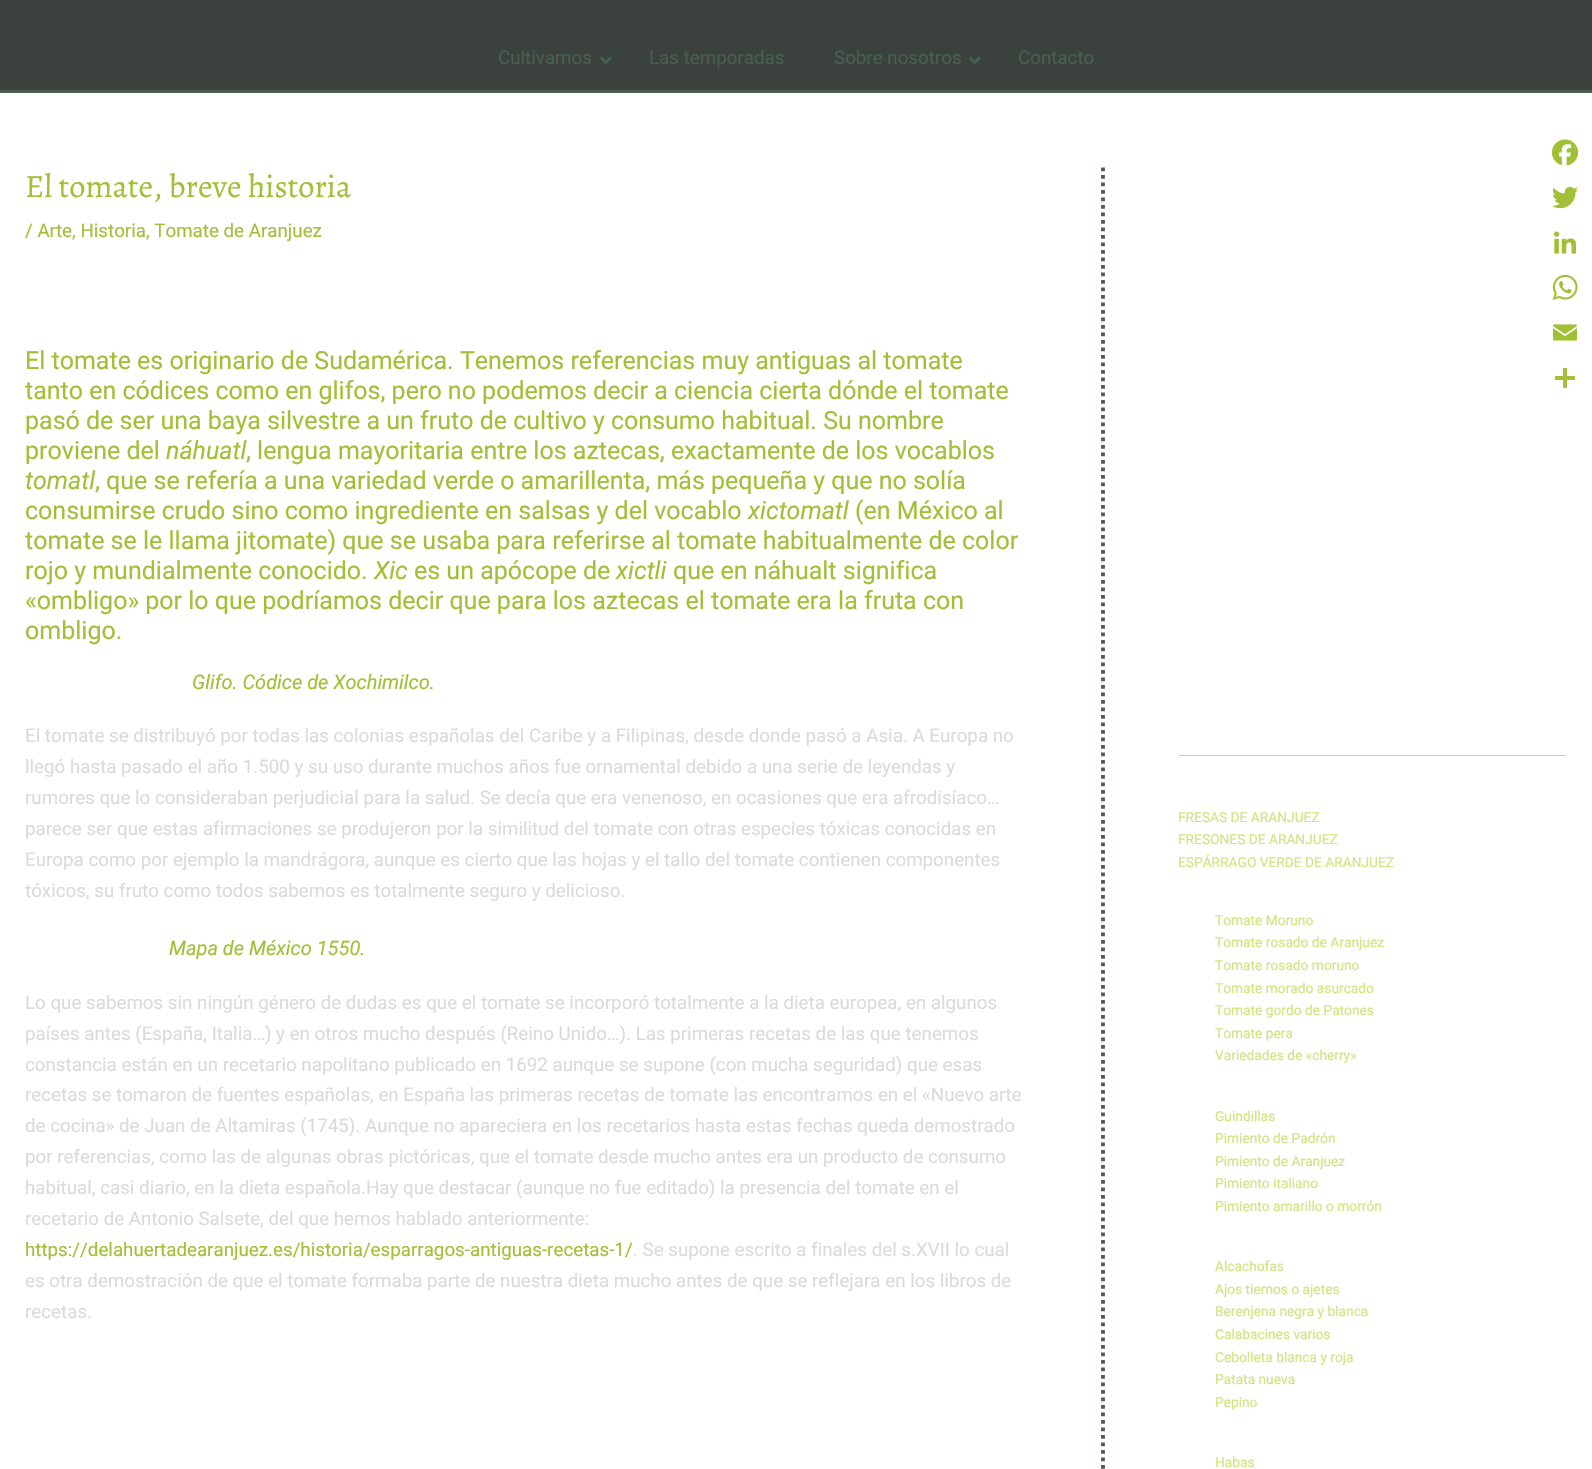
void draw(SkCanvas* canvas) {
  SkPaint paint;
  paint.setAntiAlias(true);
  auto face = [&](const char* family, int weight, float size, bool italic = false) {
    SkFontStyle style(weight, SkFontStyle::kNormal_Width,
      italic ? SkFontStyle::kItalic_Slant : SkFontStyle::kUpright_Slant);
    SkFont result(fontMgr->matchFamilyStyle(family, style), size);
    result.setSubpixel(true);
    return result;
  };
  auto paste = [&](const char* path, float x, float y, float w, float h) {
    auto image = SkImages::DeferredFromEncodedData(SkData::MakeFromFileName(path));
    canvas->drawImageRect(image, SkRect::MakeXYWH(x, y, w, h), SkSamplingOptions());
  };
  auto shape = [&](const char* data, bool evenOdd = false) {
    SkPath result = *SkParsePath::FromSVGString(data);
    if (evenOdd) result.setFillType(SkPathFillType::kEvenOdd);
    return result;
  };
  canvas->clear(0xffffffff);
  paint.setColor(0xff3b423e);
  canvas->drawRect(SkRect::MakeXYWH(0, 0, 1592, 90), paint);
  paint.setColor(0xff485f4e);
  canvas->drawRect(SkRect::MakeXYWH(0, 90, 1592, 3), paint);
  paste("img/1.png", 600, 56, 12, 8);
  paste("img/2.png", 969, 56, 12, 8);
  paint.setStroke(true);
  paint.setStrokeWidth(3.8f);
  paint.setPathEffect(SkDashPathEffect::Make({{3.75f, 3.75f}}, 0));
  canvas->drawPath(shape("M1103 167.5V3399"), paint);
  paint.setPathEffect(nullptr);
  paint.setStroke(false);
  paint.setColor(0xffcccccc);
  canvas->drawRect(SkRect::MakeXYWH(1179, 755, 387, 1), paint);
  paste("img/3.png", 1551, 139, 28, 27);
  paste("img/4.png", 1552, 186, 26, 23);
  paste("img/5.png", 1554, 231, 23, 23);
  paste("img/6.png", 1552, 274, 26, 27);
  paste("img/7.png", 1552, 324, 26, 17);
  paint.setColor(0xffa1c037);
  canvas->drawRect(SkRect::MakeXYWH(1563, 368, 4, 20), paint);
  canvas->drawRect(SkRect::MakeXYWH(1555, 376, 20, 4), paint);
  auto f0 = face("Roboto", 400, 18.75f);
  paint.setColor(0xff485f4e);
  {
    const struct { const char* s; float x, y; } items[] = {
      {"Cultivamos", 498, 64},
      {"Las temporadas", 649, 64},
      {"Sobre nosotros", 834, 64},
      {"Contacto", 1018, 64},
    };
    for (auto [s, x, y] : items) {
      canvas->drawString(s, x, y, f0, paint);
    }
  }
  auto f1 = face("Alegreya", 400, 32.5f);
  paint.setColor(0xffa1c037);
  canvas->drawString("El tomate, breve historia", 25, 197, f1, paint);
  canvas->drawString("/ Arte, Historia, Tomate de Aranjuez", 25, 237, f0, paint);
  auto f2 = face("Roboto", 400, 25);
  {
    const struct { const char* s; float x, y; } items[] = {
      {"El tomate es originario de Sudamérica. Tenemos referencias muy antiguas al tomate", 25, 369},
      {"tanto en códices como en glifos, pero no podemos decir a ciencia cierta dónde el tomate", 25, 399},
      {"pasó de ser una baya silvestre a un fruto de cultivo y consumo habitual. Su nombre", 25, 429},
      {"proviene del", 25, 459},
    };
    for (auto [s, x, y] : items) {
      canvas->drawString(s, x, y, f2, paint);
    }
  }
  auto f3 = face("Roboto", 400, 25, true);
  canvas->drawString("náhuatl", 166, 459, f3, paint);
  canvas->drawString(", lengua mayoritaria entre los aztecas, exactamente de los vocablos", 246, 459, f2, paint);
  canvas->drawString("tomatl", 25, 489, f3, paint);
  canvas->drawString(", que se refería a una variedad verde o amarillenta, más pequeña y que no solía", 95, 489, f2, paint);
  canvas->drawString("consumirse crudo sino como ingrediente en salsas y del vocablo", 25, 519, f2, paint);
  canvas->drawString("xictomatl", 748, 519, f3, paint);
  {
    const struct { const char* s; float x, y; } items[] = {
      {"(en México al", 855, 519},
      {"tomate se le llama jitomate) que se usaba para referirse al tomate habitualmente de color", 25, 549},
      {"rojo y mundialmente conocido.", 25, 579},
    };
    for (auto [s, x, y] : items) {
      canvas->drawString(s, x, y, f2, paint);
    }
  }
  canvas->drawString("Xic", 374, 579, f3, paint);
  canvas->drawString("es un apócope de", 414, 579, f2, paint);
  canvas->drawString("xictli", 616, 579, f3, paint);
  {
    const struct { const char* s; float x, y; } items[] = {
      {"que en náhualt significa", 673, 579},
      {"«ombligo» por lo que podríamos decir que para los aztecas el tomate era la fruta con", 25, 609},
      {"ombligo.", 25, 639},
    };
    for (auto [s, x, y] : items) {
      canvas->drawString(s, x, y, f2, paint);
    }
  }
  auto f4 = face("Roboto", 400, 20, true);
  canvas->drawString("Glifo. Códice de Xochimilco.", 192, 689, f4, paint);
  paint.setColor(0xffdbdbdb);
  {
    const struct { const char* s; float x, y; } items[] = {
      {"El tomate se distribuyó por todas las colonias españolas del Caribe y a Filipinas, desde donde pasó a Asia. A Europa no", 25, 742},
      {"llegó hasta pasado el año 1.500 y su uso durante muchos años fue ornamental debido a una serie de leyendas y", 25, 773},
      {"rumores que lo consideraban perjudicial para la salud. Se decía que era venenoso, en ocasiones que era afrodisíaco…", 25, 804},
      {"parece ser que estas afirmaciones se produjeron por la similitud del tomate con otras especies tóxicas conocidas en", 25, 835},
      {"Europa como por ejemplo la mandrágora, aunque es cierto que las hojas y el tallo del tomate contienen componentes", 25, 866},
      {"tóxicos, su fruto como todos sabemos es totalmente seguro y delicioso.", 25, 897},
    };
    for (auto [s, x, y] : items) {
      canvas->drawString(s, x, y, f0, paint);
    }
  }
  paint.setColor(0xffa1c037);
  canvas->drawString("Mapa de México 1550.", 169, 955, f4, paint);
  paint.setColor(0xffdbdbdb);
  {
    const struct { const char* s; float x, y; } items[] = {
      {"Lo que sabemos sin ningún género de dudas es que el tomate se incorporó totalmente a la dieta europea, en algunos", 25, 1009},
      {"países antes (España, Italia…) y en otros mucho después (Reino Unido…). Las primeras recetas de las que tenemos", 25, 1040},
      {"constancia están en un recetario napolitano publicado en 1692 aunque se supone (con mucha seguridad) que esas", 25, 1071},
      {"recetas se tomaron de fuentes españolas, en España las primeras recetas de tomate las encontramos en el «Nuevo arte", 25, 1101},
      {"de cocina» de Juan de Altamiras (1745). Aunque no apareciera en los recetarios hasta estas fechas queda demostrado", 25, 1132},
      {"por referencias, como las de algunas obras pictóricas, que el tomate desde mucho antes era un producto de consumo", 25, 1163},
      {"habitual, casi diario, en la dieta española.Hay que destacar (aunque no fue editado) la presencia del tomate en el", 25, 1194},
      {"recetario de Antonio Salsete, del que hemos hablado anteriormente:", 25, 1225},
    };
    for (auto [s, x, y] : items) {
      canvas->drawString(s, x, y, f0, paint);
    }
  }
  paint.setColor(0xffa1c037);
  canvas->drawString("https://delahuertadearanjuez.es/historia/esparragos-antiguas-recetas-1/", 25, 1256, f0, paint);
  paint.setColor(0xffdbdbdb);
  {
    const struct { const char* s; float x, y; } items[] = {
      {". Se supone escrito a finales del s.XVII lo cual", 633, 1256},
      {"es otra demostración de que el tomate formaba parte de nuestra dieta mucho antes de que se reflejara en los libros de", 25, 1287},
      {"recetas.", 25, 1318},
    };
    for (auto [s, x, y] : items) {
      canvas->drawString(s, x, y, f0, paint);
    }
  }
  auto f5 = face("Roboto", 400, 13.75f);
  paint.setColor(0xffcfe681);
  {
    const struct { const char* s; float x, y; } items[] = {
      {"FRESAS DE ARANJUEZ", 1178, 822},
      {"FRESONES DE ARANJUEZ", 1178, 844},
      {"ESPÁRRAGO VERDE DE ARANJUEZ", 1178, 867},
      {"Tomate Moruno", 1215, 925},
      {"Tomate rosado de Aranjuez", 1215, 947},
      {"Tomate rosado moruno", 1215, 970},
      {"Tomate morado asurcado", 1215, 993},
      {"Tomate gordo de Patones", 1215, 1015},
      {"Tomate pera", 1215, 1038},
      {"Variedades de «cherry»", 1215, 1060},
      {"Guindillas", 1215, 1121},
      {"Pimiento de Padrón", 1215, 1143},
      {"Pimiento de Aranjuez", 1215, 1166},
      {"Pimiento italiano", 1215, 1188},
      {"Pimiento amarillo o morrón", 1215, 1211},
      {"Alcachofas", 1215, 1271},
      {"Ajos tiernos o ajetes", 1215, 1294},
      {"Berenjena negra y blanca", 1215, 1316},
      {"Calabacines varios", 1215, 1339},
      {"Cebolleta blanca y roja", 1215, 1362},
      {"Patata nueva", 1215, 1384},
      {"Pepino", 1215, 1407},
      {"Habas", 1215, 1467},
    };
    for (auto [s, x, y] : items) {
      canvas->drawString(s, x, y, f5, paint);
    }
  }
}
